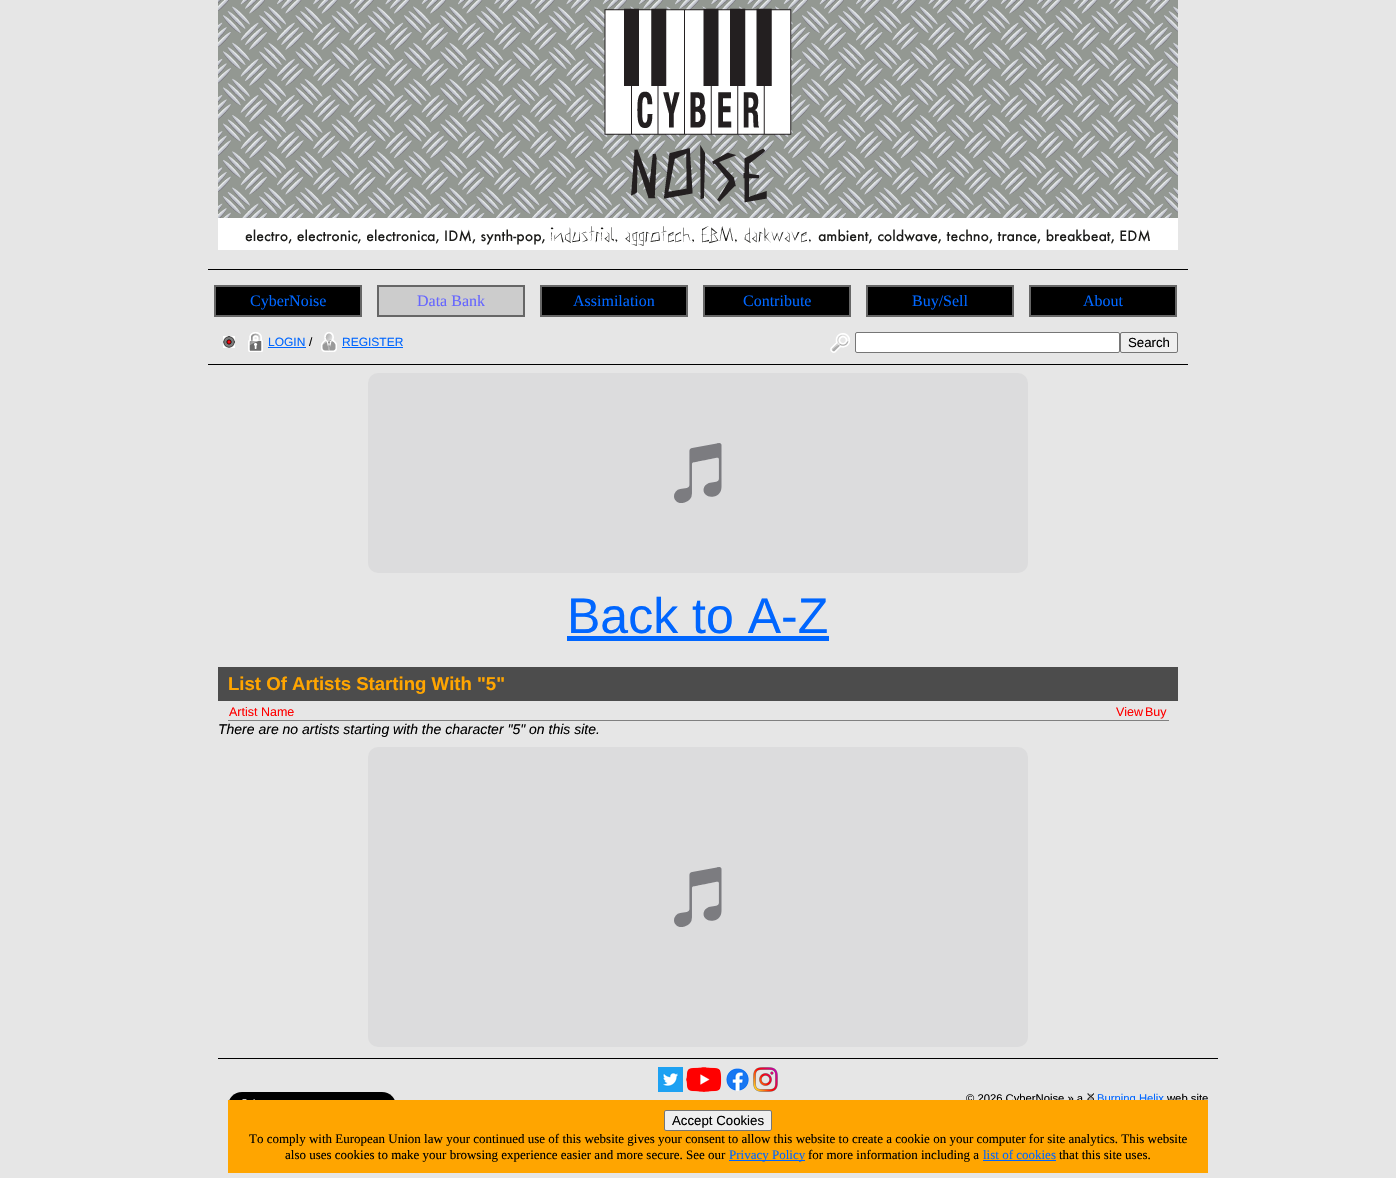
void draw(SkCanvas* canvas) {
  SkPaint paint;
  paint.setAntiAlias(true);
  auto face = [&](const char* family, int weight, float size, bool italic = false) {
    SkFontStyle style(weight, SkFontStyle::kNormal_Width,
      italic ? SkFontStyle::kItalic_Slant : SkFontStyle::kUpright_Slant);
    SkFont result(fontMgr->matchFamilyStyle(family, style), size);
    result.setSubpixel(true);
    return result;
  };
  auto paste = [&](const char* path, float x, float y, float w, float h) {
    auto image = SkImages::DeferredFromEncodedData(SkData::MakeFromFileName(path));
    canvas->drawImageRect(image, SkRect::MakeXYWH(x, y, w, h), SkSamplingOptions());
  };
  canvas->clear(0xffe6e6e6);
  paste("img/1.png", 218, 0, 960, 250);
  paint.setColor(0xff000000);
  canvas->drawRect(SkRect::MakeXYWH(208, 269, 980, 1), paint);
  canvas->drawRect(SkRect::MakeXYWH(215, 286, 146, 30), paint);
  paint.setStroke(true);
  paint.setStrokeWidth(2);
  paint.setColor(0xff666666);
  canvas->drawRect(SkRect::MakeXYWH(215, 286, 146, 30), paint);
  paint.setStroke(false);
  paint.setColor(0xffcccccc);
  canvas->drawRect(SkRect::MakeXYWH(378, 286, 146, 30), paint);
  paint.setStroke(true);
  paint.setColor(0xff666666);
  canvas->drawRect(SkRect::MakeXYWH(378, 286, 146, 30), paint);
  paint.setStroke(false);
  paint.setColor(0xff000000);
  canvas->drawRect(SkRect::MakeXYWH(541, 286, 146, 30), paint);
  paint.setStroke(true);
  paint.setColor(0xff666666);
  canvas->drawRect(SkRect::MakeXYWH(541, 286, 146, 30), paint);
  paint.setStroke(false);
  paint.setColor(0xff000000);
  canvas->drawRect(SkRect::MakeXYWH(704, 286, 146, 30), paint);
  paint.setStroke(true);
  paint.setColor(0xff666666);
  canvas->drawRect(SkRect::MakeXYWH(704, 286, 146, 30), paint);
  paint.setStroke(false);
  paint.setColor(0xff000000);
  canvas->drawRect(SkRect::MakeXYWH(867, 286, 146, 30), paint);
  paint.setStroke(true);
  paint.setColor(0xff666666);
  canvas->drawRect(SkRect::MakeXYWH(867, 286, 146, 30), paint);
  paint.setStroke(false);
  paint.setColor(0xff000000);
  canvas->drawRect(SkRect::MakeXYWH(1030, 286, 146, 30), paint);
  paint.setStroke(true);
  paint.setColor(0xff666666);
  canvas->drawRect(SkRect::MakeXYWH(1030, 286, 146, 30), paint);
  paste("img/2.png", 223, 336, 12, 12);
  paste("img/3.png", 248, 332, 15, 20);
  paint.setStroke(false);
  paint.setColor(0xff0066ff);
  canvas->drawRect(SkRect::MakeXYWH(268, 347, 38, 1), paint);
  paste("img/4.png", 321, 332, 16, 20);
  canvas->drawRect(SkRect::MakeXYWH(342, 347, 61, 1), paint);
  paste("img/5.png", 830, 333, 20, 20);
  paint.setColor(0xffffffff);
  canvas->drawRoundRect(SkRect::MakeXYWH(855.5f, 332.5f, 264, 20), 1.5f, 1.5f, paint);
  paint.setStroke(true);
  paint.setStrokeWidth(1);
  paint.setColor(0xff767676);
  canvas->drawRoundRect(SkRect::MakeXYWH(855.5f, 332.5f, 264, 20), 1.5f, 1.5f, paint);
  paint.setStroke(false);
  paint.setColor(0xffefefef);
  canvas->drawRoundRect(SkRect::MakeXYWH(1120.5f, 332.5f, 57, 20), 1.5f, 1.5f, paint);
  paint.setStroke(true);
  paint.setColor(0xff767676);
  canvas->drawRoundRect(SkRect::MakeXYWH(1120.5f, 332.5f, 57, 20), 1.5f, 1.5f, paint);
  paint.setStroke(false);
  paint.setColor(0xff000000);
  canvas->drawRect(SkRect::MakeXYWH(208, 364, 980, 1), paint);
  paste("img/6.png", 368, 373, 660, 200);
  {
    const struct { float x, y, w, h; SkColor color; } items[] = {
      {567, 636, 262, 5, 0xff0066ff},
      {218, 667, 960, 34, 0xff4c4c4c},
      {228, 720, 941, 1, 0xff808080},
    };
    for (auto [x, y, w, h, color] : items) {
      paint.setColor(color);
      canvas->drawRect(SkRect::MakeXYWH(x, y, w, h), paint);
    }
  }
  paste("img/7.png", 368, 747, 660, 300);
  paint.setColor(0xff000000);
  canvas->drawRect(SkRect::MakeXYWH(218, 1058, 1000, 1), paint);
  paste("img/8.png", 658, 1067, 25, 25);
  paste("img/9.png", 686, 1067, 36, 25);
  paste("img/10.png", 726, 1068, 23, 23);
  paste("img/11.png", 753, 1067, 25, 25);
  paste("img/12.png", 229, 1092, 166, 8);
  paste("img/13.png", 1087, 1093, 7, 7);
  auto f0 = face("Liberation Serif", 400, 16);
  paint.setColor(0xff0066ff);
  canvas->drawString("CyberNoise", 250, 306, f0, paint);
  paint.setColor(0xff6666ff);
  canvas->drawString("Data Bank", 417, 306, f0, paint);
  paint.setColor(0xff0066ff);
  {
    const struct { const char* s; float x, y; } items[] = {
      {"Assimilation", 573, 306},
      {"Contribute", 743, 306},
      {"Buy/Sell", 912, 306},
      {"About", 1083, 306},
    };
    for (auto [s, x, y] : items) {
      canvas->drawString(s, x, y, f0, paint);
    }
  }
  auto f1 = face("Liberation Sans", 400, 12);
  canvas->drawString("LOGIN", 268, 346, f1, paint);
  paint.setColor(0xff000000);
  canvas->drawString("/", 309, 346, f1, paint);
  paint.setColor(0xff0066ff);
  canvas->drawString("REGISTER", 342, 346, f1, paint);
  auto f2 = face("Liberation Sans", 400, 13.25f);
  paint.setColor(0xff000000);
  canvas->drawString("Search", 1128, 347, f2, paint);
  auto f3 = face("Liberation Sans", 400, 50);
  paint.setColor(0xff0066ff);
  canvas->drawString("Back to A-Z", 567, 633, f3, paint);
  auto f4 = face("Liberation Sans", 700, 18.6f);
  paint.setColor(0xffffa500);
  canvas->drawString("List Of Artists Starting With \"5\"", 228, 690, f4, paint);
  auto f5 = face("Liberation Sans", 400, 12.5f);
  paint.setColor(0xffff0000);
  {
    const struct { const char* s; float x, y; } items[] = {
      {"Artist Name", 229, 716},
      {"View", 1116, 716},
      {"Buy", 1145, 716},
    };
    for (auto [s, x, y] : items) {
      canvas->drawString(s, x, y, f5, paint);
    }
  }
  auto f6 = face("Liberation Sans", 400, 14, true);
  paint.setColor(0xff000000);
  canvas->drawString("There are no artists starting with the character \"5\" on this site.", 218, 734, f6, paint);
  auto f7 = face("Liberation Sans", 400, 11.25f);
  canvas->drawString("© 2026 CyberNoise » a", 966, 1102, f7, paint);
  paint.setColor(0xff0066ff);
  canvas->drawString("Burning Helix", 1097, 1102, f7, paint);
  paint.setColor(0xff000000);
  canvas->drawString("web site", 1167, 1102, f7, paint);
  paint.setColor(0xffffa500);
  canvas->drawRect(SkRect::MakeXYWH(228, 1100, 980, 73), paint);
  paint.setColor(0xffefefef);
  canvas->drawRoundRect(SkRect::MakeXYWH(664.5f, 1110.5f, 107, 20), 1.5f, 1.5f, paint);
  paint.setStroke(true);
  paint.setColor(0xff767676);
  canvas->drawRoundRect(SkRect::MakeXYWH(664.5f, 1110.5f, 107, 20), 1.5f, 1.5f, paint);
  paint.setStroke(false);
  paint.setColor(0xff000000);
  canvas->drawString("Accept Cookies", 672, 1125, f2, paint);
  auto f8 = face("Liberation Serif", 400, 13);
  canvas->drawString("To comply with European Union law your continued use of this website gives your consent to allow this website to create a cookie on your computer for site analytics. This website", 249, 1143, f8, paint);
  canvas->drawString("also uses cookies to make your browsing experience easier and more secure. See our", 285, 1159, f8, paint);
  paint.setColor(0xff0066ff);
  canvas->drawRect(SkRect::MakeXYWH(729, 1160, 76, 1), paint);
  canvas->drawString("Privacy Policy", 729, 1159, f8, paint);
  paint.setColor(0xff000000);
  canvas->drawString("for more information including a", 808, 1159, f8, paint);
  paint.setColor(0xff0066ff);
  canvas->drawString("list of cookies", 983, 1159, f8, paint);
  canvas->drawRect(SkRect::MakeXYWH(983, 1160, 73, 1), paint);
  paint.setColor(0xff000000);
  canvas->drawString("that this site uses.", 1059, 1159, f8, paint);
}
